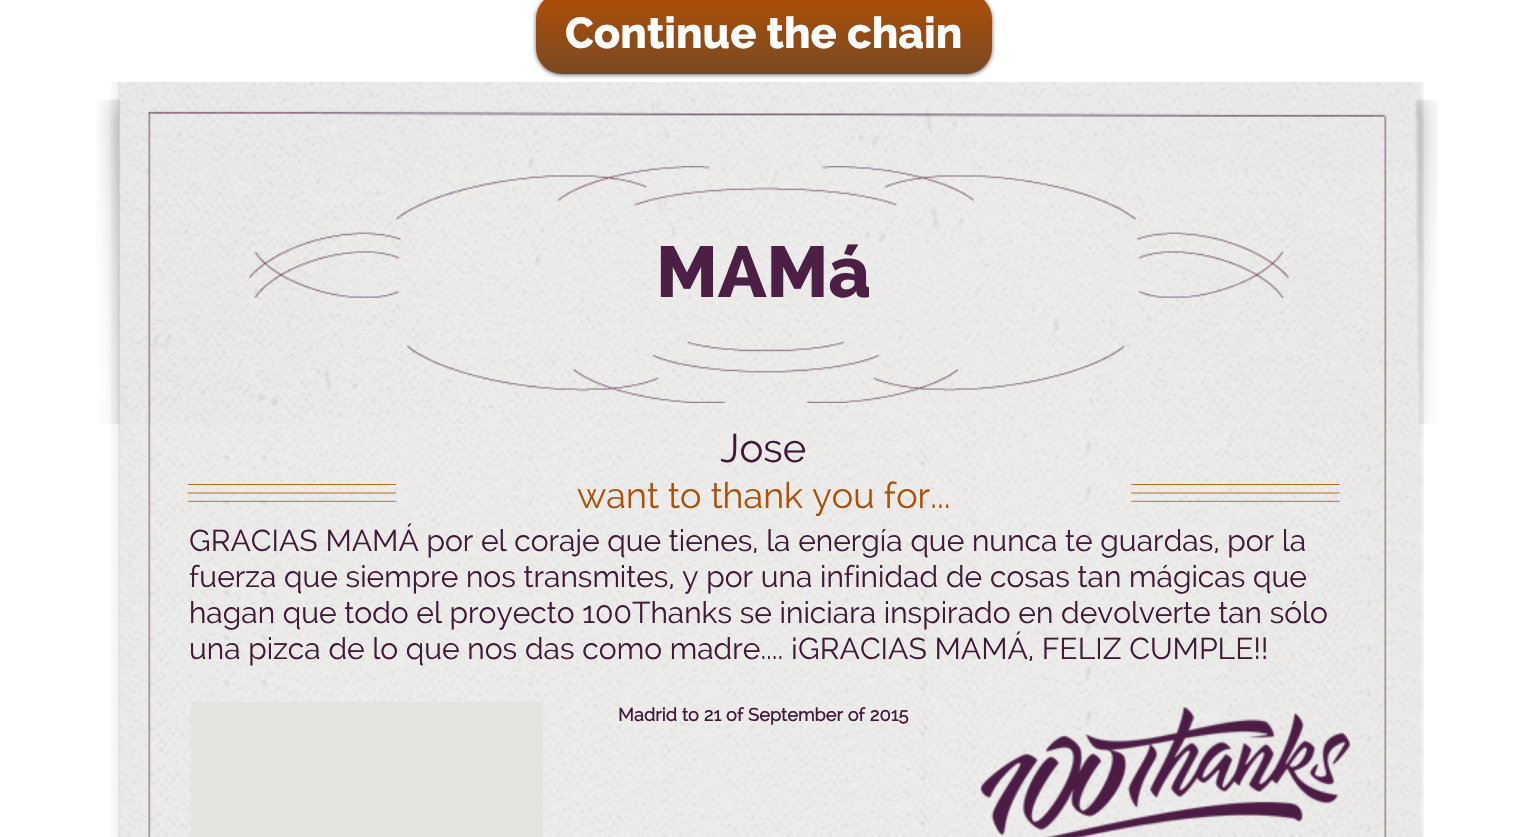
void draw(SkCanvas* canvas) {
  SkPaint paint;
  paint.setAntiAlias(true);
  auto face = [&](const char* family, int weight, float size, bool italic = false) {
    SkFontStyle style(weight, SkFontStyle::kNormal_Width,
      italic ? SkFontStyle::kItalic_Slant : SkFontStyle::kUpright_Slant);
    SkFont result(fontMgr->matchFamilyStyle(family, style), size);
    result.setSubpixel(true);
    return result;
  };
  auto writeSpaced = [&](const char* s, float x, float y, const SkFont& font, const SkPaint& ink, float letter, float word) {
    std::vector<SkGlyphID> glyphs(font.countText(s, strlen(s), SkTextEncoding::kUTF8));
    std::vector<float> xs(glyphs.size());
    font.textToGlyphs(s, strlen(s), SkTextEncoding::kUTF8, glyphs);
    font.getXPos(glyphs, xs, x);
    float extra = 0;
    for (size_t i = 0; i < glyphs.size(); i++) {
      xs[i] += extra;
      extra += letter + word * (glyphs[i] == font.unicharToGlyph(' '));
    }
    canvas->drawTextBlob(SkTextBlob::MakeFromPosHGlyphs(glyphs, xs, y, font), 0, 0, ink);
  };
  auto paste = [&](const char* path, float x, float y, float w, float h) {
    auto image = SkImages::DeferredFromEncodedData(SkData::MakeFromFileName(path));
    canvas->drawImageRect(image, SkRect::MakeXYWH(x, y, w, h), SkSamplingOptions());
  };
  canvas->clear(0xffffffff);
  paint.setColor(0xff666666);
  paint.setMaskFilter(SkMaskFilter::MakeBlur(kNormal_SkBlurStyle, 2));
  canvas->drawRoundRect(SkRect::MakeXYWH(536, -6, 456, 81), 26, 26, paint);
  paint.setMaskFilter(nullptr);
  {
    const SkColor colors[] = {0xffaf4f05, 0xff7a4924};
    const float stops[] = {0, 1};
    const SkPoint ends[] = {{764, -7.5f}, {764, 74}};
    paint.setShader(SkGradientShader::MakeLinear(ends, colors, stops, 2, SkTileMode::kClamp));
    paint.setAlpha(255);
  }
  canvas->drawRoundRect(SkRect::MakeXYWH(536, -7, 456, 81), 26, 26, paint);
  paste("img/1.png", 111, 82, 1313, 755);
  paste("img/2.png", 96, 82, 1342, 342);
  paste("img/3.png", 249, 166, 1040, 237);
  paste("img/4.png", 187, 484, 209, 18);
  paste("img/5.png", 1131, 484, 209, 18);
  paint.setShader(nullptr);
  paint.setColor(0xffe5e3df);
  canvas->drawRect(SkRect::MakeXYWH(191, 702, 352, 135), paint);
  paste("img/6.png", 980, 707, 370, 130);
  auto f0 = face("Raleway", 800, 43.5f);
  paint.setColor(0xffffffff);
  canvas->drawString("Continue the chain", 565, 48, f0, paint);
  auto f1 = face("Raleway", 800, 72);
  paint.setColor(0xff4d1f44);
  canvas->drawString("MAMá", 656, 297, f1, paint);
  auto f2 = face("Raleway", 400, 40);
  paint.setColor(0xff411939);
  canvas->drawString("Jose", 720, 462, f2, paint);
  auto f3 = face("Raleway", 400, 36);
  paint.setColor(0xffaf5005);
  canvas->drawString("want to thank you for...", 577, 508, f3, paint);
  auto f4 = face("Raleway", 400, 30);
  paint.setColor(0xff411939);
  {
    const struct { const char* s; float x, y; } items[] = {
      {"GRACIAS MAMÁ por el coraje que tienes, la energía que nunca te guardas, por la", 189, 551},
      {"fuerza que siempre nos transmites, y por una infinidad de cosas tan mágicas que", 189, 587},
      {"hagan que todo el proyecto 100Thanks se iniciara inspirado en devolverte tan sólo", 189, 623},
      {"una pizca de lo que nos das como madre.... ¡GRACIAS MAMÁ, FELIZ CUMPLE!!", 189, 659},
    };
    for (auto [s, x, y] : items) {
      canvas->drawString(s, x, y, f4, paint);
    }
  }
  auto f5 = face("Raleway", 700, 18);
  writeSpaced("Madrid to 21 of September of 2015", 618, 721, f5, paint, 0.15f, 0);
}
